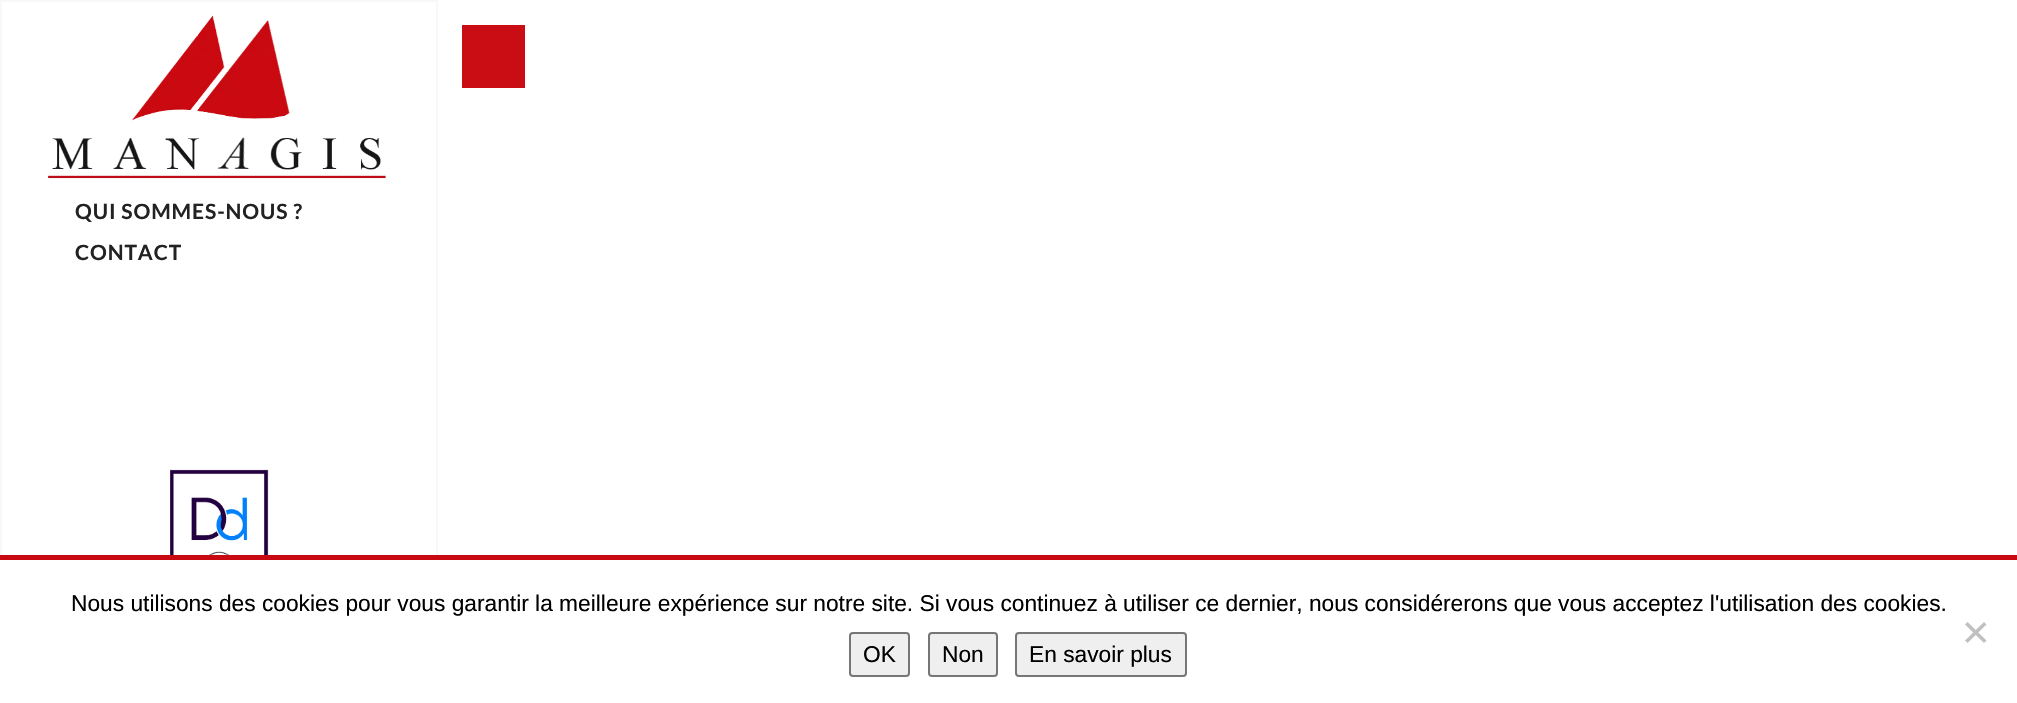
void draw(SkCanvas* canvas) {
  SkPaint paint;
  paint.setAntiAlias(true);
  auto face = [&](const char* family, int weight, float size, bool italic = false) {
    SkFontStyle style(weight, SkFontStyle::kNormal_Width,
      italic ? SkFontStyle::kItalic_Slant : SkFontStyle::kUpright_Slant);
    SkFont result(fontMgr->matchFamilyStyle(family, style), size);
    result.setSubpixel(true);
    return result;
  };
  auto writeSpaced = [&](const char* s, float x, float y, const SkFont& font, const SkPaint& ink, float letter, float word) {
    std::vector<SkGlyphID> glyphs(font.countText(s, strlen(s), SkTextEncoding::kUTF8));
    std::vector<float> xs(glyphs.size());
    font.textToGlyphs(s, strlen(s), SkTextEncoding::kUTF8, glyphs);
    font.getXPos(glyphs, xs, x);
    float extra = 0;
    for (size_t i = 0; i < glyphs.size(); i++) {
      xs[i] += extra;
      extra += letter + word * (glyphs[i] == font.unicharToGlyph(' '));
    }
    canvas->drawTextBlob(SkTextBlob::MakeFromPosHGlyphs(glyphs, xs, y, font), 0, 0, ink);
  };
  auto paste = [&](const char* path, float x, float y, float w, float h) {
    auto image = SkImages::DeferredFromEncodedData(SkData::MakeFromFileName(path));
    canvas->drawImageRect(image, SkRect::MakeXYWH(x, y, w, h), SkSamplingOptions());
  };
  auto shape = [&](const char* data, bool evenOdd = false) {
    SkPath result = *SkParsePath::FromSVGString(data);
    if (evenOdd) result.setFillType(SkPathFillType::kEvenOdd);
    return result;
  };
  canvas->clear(0xffffffff);
  paint.setColor(0xffca0c15);
  canvas->drawRect(SkRect::MakeXYWH(462, 25, 63, 63), paint);
  paint.setStroke(true);
  paint.setStrokeWidth(2);
  paint.setColor(0xfff7f8fa);
  canvas->drawRect(SkRect::MakeXYWH(1, 1, 436, 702), paint);
  paste("img/1.png", 48, 15, 338, 164);
  paste("img/2.png", 170, 469, 99, 86);
  paint.setStroke(false);
  paint.setColor(0xffffffff);
  canvas->drawRect(SkRect::MakeXYWH(0, 560, 438, 143), paint);
  paint.setColor(0xffc90912);
  canvas->drawRect(SkRect::MakeXYWH(0, 555, 2017, 5), paint);
  paint.setColor(0xffc0c0c0);
  canvas->drawPath(shape("M1984 622L1986.5 624.5L1967.5 643L1965 640.5Z"), paint);
  canvas->drawPath(shape("M1965 624.5L1967.5 622L1986.5 640.5L1984 643Z"), paint);
  paint.setColor(0xffefefef);
  canvas->drawRoundRect(SkRect::MakeXYWH(850, 633, 59, 43), 3, 3, paint);
  paint.setStroke(true);
  paint.setColor(0xff767676);
  canvas->drawRoundRect(SkRect::MakeXYWH(850, 633, 59, 43), 3, 3, paint);
  paint.setStroke(false);
  paint.setColor(0xffefefef);
  canvas->drawRoundRect(SkRect::MakeXYWH(929, 633, 68, 43), 3, 3, paint);
  paint.setStroke(true);
  paint.setColor(0xff767676);
  canvas->drawRoundRect(SkRect::MakeXYWH(929, 633, 68, 43), 3, 3, paint);
  paint.setStroke(false);
  paint.setColor(0xffefefef);
  canvas->drawRoundRect(SkRect::MakeXYWH(1016, 633, 170, 43), 3, 3, paint);
  paint.setStroke(true);
  paint.setColor(0xff767676);
  canvas->drawRoundRect(SkRect::MakeXYWH(1016, 633, 170, 43), 3, 3, paint);
  auto f0 = face("Lato", 700, 21);
  paint.setStroke(false);
  paint.setColor(0xff222222);
  writeSpaced("QUI SOMMES-NOUS ?", 75, 219, f0, paint, 0.9f, 0);
  writeSpaced("CONTACT", 75, 260, f0, paint, 0.9f, 0);
  auto f1 = face("Liberation Sans", 400, 22.75f);
  paint.setColor(0xff000000);
  {
    const struct { const char* s; float x, y; } items[] = {
      {"Nous utilisons des cookies pour vous garantir la meilleure expérience sur notre site. Si vous continuez à utiliser ce dernier, nous considérerons que vous acceptez l'utilisation des cookies.", 71, 611},
      {"OK", 863, 662},
      {"Non", 942, 662},
      {"En savoir plus", 1029, 662},
    };
    for (auto [s, x, y] : items) {
      canvas->drawString(s, x, y, f1, paint);
    }
  }
}
